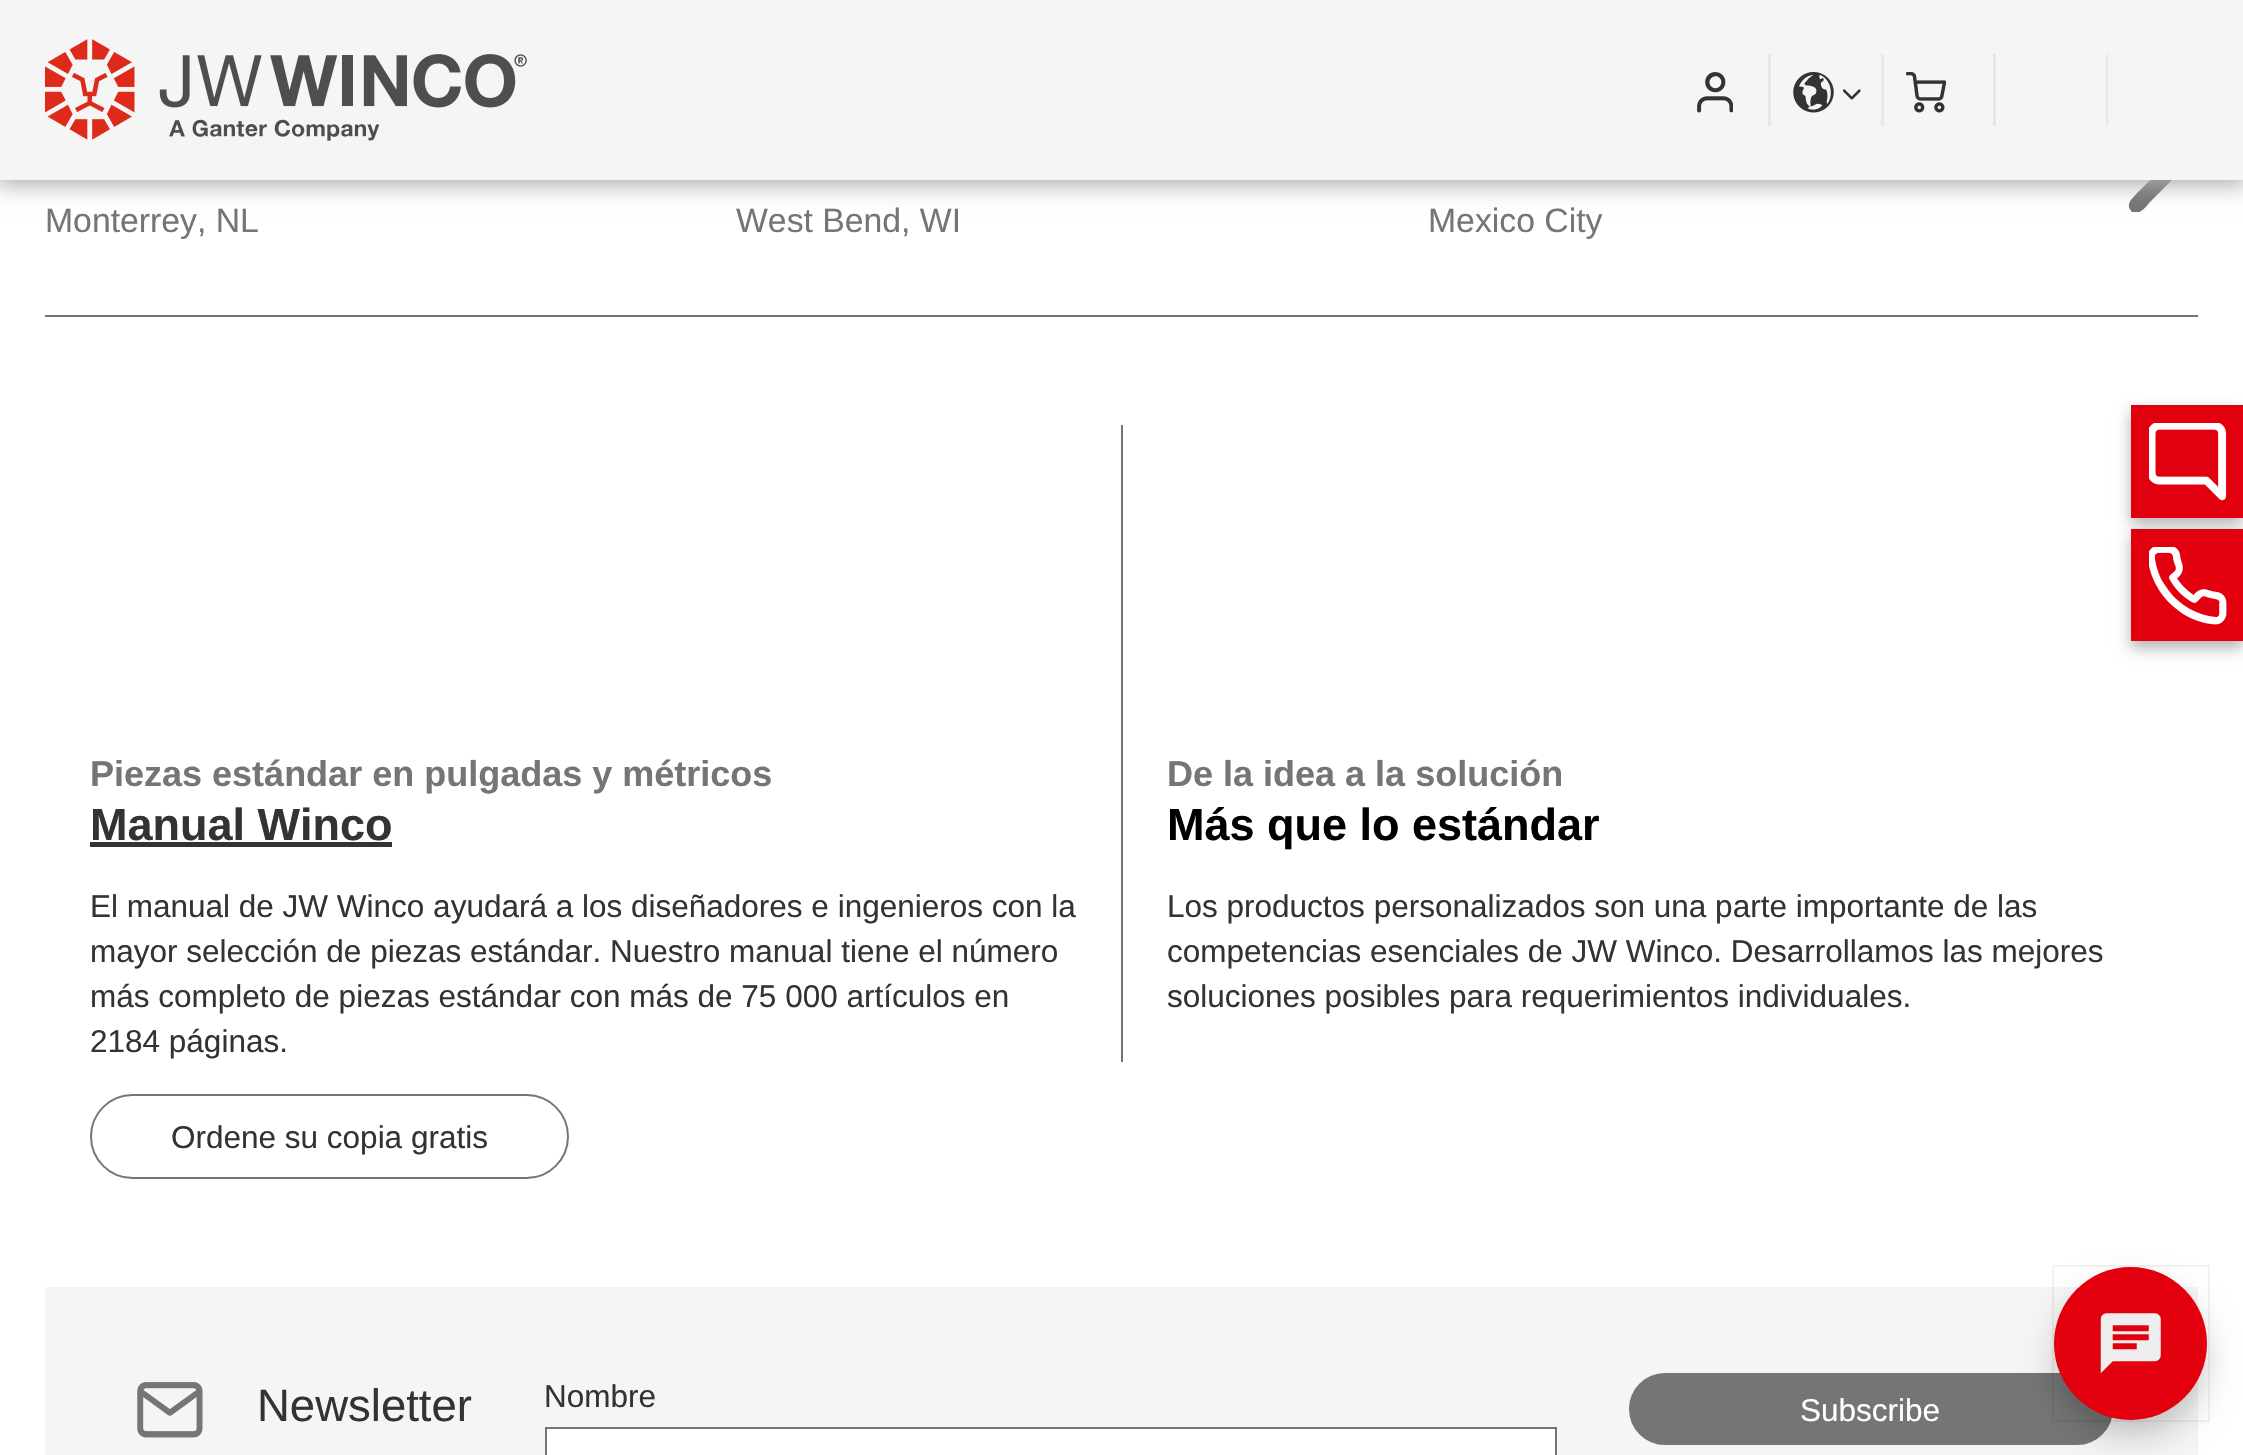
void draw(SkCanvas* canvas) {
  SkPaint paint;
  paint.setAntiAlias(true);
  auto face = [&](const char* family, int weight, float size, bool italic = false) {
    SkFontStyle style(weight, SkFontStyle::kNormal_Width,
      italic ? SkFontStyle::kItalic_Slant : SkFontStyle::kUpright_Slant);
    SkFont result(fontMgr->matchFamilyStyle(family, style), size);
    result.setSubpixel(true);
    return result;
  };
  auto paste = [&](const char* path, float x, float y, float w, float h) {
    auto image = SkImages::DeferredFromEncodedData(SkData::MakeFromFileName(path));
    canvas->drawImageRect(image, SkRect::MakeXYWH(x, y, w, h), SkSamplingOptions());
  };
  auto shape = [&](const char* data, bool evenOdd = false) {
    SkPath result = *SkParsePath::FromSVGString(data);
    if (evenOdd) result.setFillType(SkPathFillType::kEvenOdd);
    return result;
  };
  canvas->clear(0xffffffff);
  canvas->save();
  canvas->clipRect(SkRect::MakeXYWH(2120, 108, 78, 104));
  paint.setColor(0xff757575);
  canvas->drawPath(shape("M2187 155L2149 118C2145 113 2140 105 2133 109C2131 110 2130 111 2129 113C2127 119 2134 124 2137 127L2171 160L2137 193C2134 197 2128 201 2129 207C2129 209 2131 210 2132 212C2139 216 2146 207 2149 203L2179 173C2183 169 2194 162 2187 155Z"), paint);
  canvas->restore();
  paint.setColor(0xffadadad);
  paint.setMaskFilter(SkMaskFilter::MakeBlur(kNormal_SkBlurStyle, 11));
  canvas->drawRect(SkRect::MakeXYWH(-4, -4, 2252, 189), paint);
  paint.setMaskFilter(nullptr);
  paint.setColor(0xfff5f5f5);
  canvas->drawRect(SkRect::MakeXYWH(0, 0, 2243, 180), paint);
  paste("img/1.png", 45, 39, 482, 102);
  paint.setColor(0xffe9e5e5);
  canvas->drawRect(SkRect::MakeXYWH(1768, 54, 3, 72), paint);
  paste("img/2.png", 1697, 72, 36, 41);
  paint.setColor(0xffeae7e7);
  canvas->drawRect(SkRect::MakeXYWH(1881, 54, 3, 72), paint);
  paste("img/3.png", 1793, 72, 41, 41);
  paste("img/4.png", 1843, 89, 18, 11);
  paint.setColor(0xffe9e5e5);
  canvas->drawRect(SkRect::MakeXYWH(1993, 54, 3, 72), paint);
  paste("img/5.png", 1906, 72, 40, 41);
  paste("img/6.png", 2105, 54, 3, 72);
  paint.setColor(0xff757575);
  canvas->drawRect(SkRect::MakeXYWH(45, 315, 2153, 2), paint);
  paint.setColor(0xff333333);
  canvas->drawRect(SkRect::MakeXYWH(90, 842, 302, 5), paint);
  paint.setStroke(true);
  paint.setStrokeWidth(2);
  paint.setColor(0xff757575);
  canvas->drawRoundRect(SkRect::MakeXYWH(91, 1095, 477, 83), 41.5f, 41.5f, paint);
  paint.setStroke(false);
  canvas->drawRect(SkRect::MakeXYWH(1121, 425, 2, 637), paint);
  paint.setColor(0xfff5f5f5);
  canvas->drawRect(SkRect::MakeXYWH(45, 1287, 2153, 168), paint);
  paste("img/7.png", 137, 1382, 66, 56);
  paint.setColor(0xffffffff);
  canvas->drawRect(SkRect::MakeXYWH(546, 1428, 1010, 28), paint);
  paint.setStroke(true);
  paint.setColor(0xff757575);
  canvas->drawRect(SkRect::MakeXYWH(546, 1428, 1010, 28), paint);
  paint.setStroke(false);
  canvas->drawRoundRect(SkRect::MakeXYWH(1630, 1374, 482, 70), 35, 35, paint);
  paint.setStroke(true);
  canvas->drawRoundRect(SkRect::MakeXYWH(1630, 1374, 482, 70), 35, 35, paint);
  paint.setStroke(false);
  paint.setColor(0x4d000000);
  paint.setMaskFilter(SkMaskFilter::MakeBlur(kNormal_SkBlurStyle, 7));
  canvas->drawRect(SkRect::MakeXYWH(2131, 412, 112, 112), paint);
  paint.setMaskFilter(nullptr);
  paint.setColor(0xffe3000e);
  canvas->drawRect(SkRect::MakeXYWH(2131, 405, 112, 113), paint);
  paste("img/8.png", 2149, 423, 78, 78);
  paint.setColor(0x4d000000);
  paint.setMaskFilter(SkMaskFilter::MakeBlur(kNormal_SkBlurStyle, 7));
  canvas->drawRect(SkRect::MakeXYWH(2131, 536, 112, 112), paint);
  paint.setMaskFilter(nullptr);
  paint.setColor(0xffe3000e);
  canvas->drawRect(SkRect::MakeXYWH(2131, 529, 112, 112), paint);
  paste("img/9.png", 2149, 547, 78, 78);
  paint.setStroke(true);
  paint.setColor(0x0d000000);
  canvas->drawRect(SkRect::MakeXYWH(2053, 1266, 156, 155), paint);
  paint.setStroke(false);
  paint.setColor(0x40000000);
  paint.setMaskFilter(SkMaskFilter::MakeBlur(kNormal_SkBlurStyle, 18));
  canvas->drawRoundRect(SkRect::MakeXYWH(2059, 1289, 144, 144), 72, 72, paint);
  paint.setMaskFilter(nullptr);
  paint.setColor(0xffe3000e);
  canvas->drawCircle(2130.5f, 1343.5f, 76.5f, paint);
  paste("img/10.png", 2100, 1313, 61, 61);
  auto f0 = face("Liberation Sans", 400, 33.75f);
  paint.setColor(0xff757575);
  {
    const struct { const char* s; float x, y; } items[] = {
      {"Monterrey, NL", 45, 232},
      {"West Bend, WI", 736, 232},
      {"Mexico City", 1428, 232},
    };
    for (auto [s, x, y] : items) {
      canvas->drawString(s, x, y, f0, paint);
    }
  }
  auto f1 = face("Liberation Sans", 700, 36);
  canvas->drawString("Piezas estándar en pulgadas y métricos", 90, 786, f1, paint);
  auto f2 = face("Liberation Sans", 700, 45);
  paint.setColor(0xff333333);
  canvas->drawString("Manual Winco", 90, 840, f2, paint);
  auto f3 = face("Liberation Sans", 400, 31.5f);
  {
    const struct { const char* s; float x, y; } items[] = {
      {"El manual de JW Winco ayudará a los diseñadores e ingenieros con la", 90, 917},
      {"mayor selección de piezas estándar. Nuestro manual tiene el número", 90, 962},
      {"más completo de piezas estándar con más de 75 000 artículos en", 90, 1007},
      {"2184 páginas.", 90, 1052},
      {"Ordene su copia gratis", 171, 1148},
    };
    for (auto [s, x, y] : items) {
      canvas->drawString(s, x, y, f3, paint);
    }
  }
  paint.setColor(0xff757575);
  canvas->drawString("De la idea a la solución", 1167, 786, f1, paint);
  paint.setColor(0xff000000);
  canvas->drawString("Más que lo estándar", 1167, 840, f2, paint);
  paint.setColor(0xff333333);
  {
    const struct { const char* s; float x, y; } items[] = {
      {"Los productos personalizados son una parte importante de las", 1167, 917},
      {"competencias esenciales de JW Winco. Desarrollamos las mejores", 1167, 962},
      {"soluciones posibles para requerimientos individuales.", 1167, 1007},
    };
    for (auto [s, x, y] : items) {
      canvas->drawString(s, x, y, f3, paint);
    }
  }
  auto f4 = face("Liberation Sans", 400, 45.5f);
  canvas->drawString("Newsletter", 257, 1421, f4, paint);
  canvas->drawString("Nombre", 544, 1407, f3, paint);
  paint.setColor(0xffffffff);
  canvas->drawString("Subscribe", 1800, 1421, f3, paint);
}
